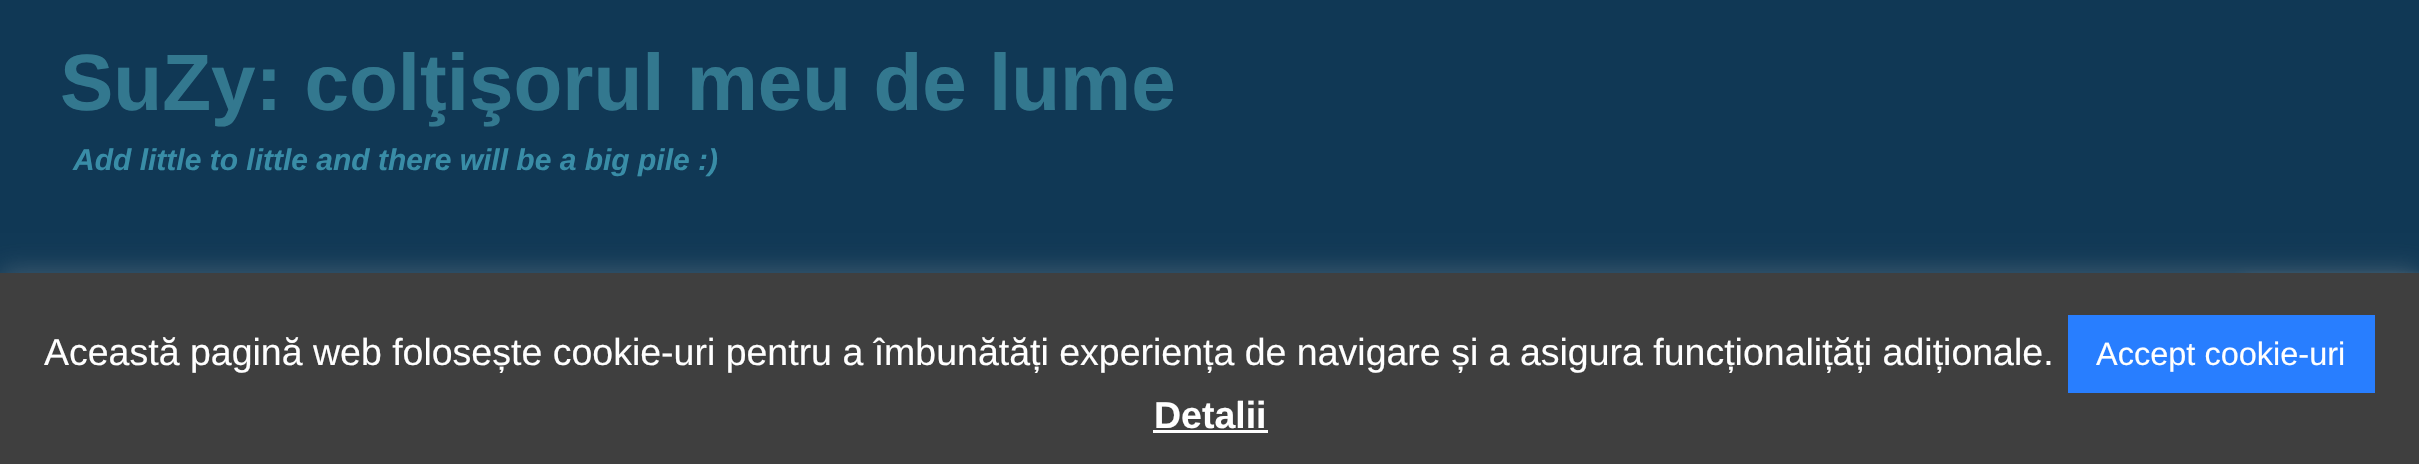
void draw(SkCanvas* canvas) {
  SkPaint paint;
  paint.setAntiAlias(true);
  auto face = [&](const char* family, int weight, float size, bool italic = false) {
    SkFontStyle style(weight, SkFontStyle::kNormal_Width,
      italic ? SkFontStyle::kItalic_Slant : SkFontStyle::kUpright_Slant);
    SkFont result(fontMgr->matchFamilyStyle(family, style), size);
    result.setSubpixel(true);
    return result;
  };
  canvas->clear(0xff103855);
  paint.setColor(0xff808080);
  paint.setMaskFilter(SkMaskFilter::MakeBlur(kNormal_SkBlurStyle, 6));
  canvas->drawRoundRect(SkRect::MakeXYWH(2245, 280, 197, 150), 5, 5, paint);
  paint.setMaskFilter(nullptr);
  paint.setColor(0x4dacabab);
  paint.setMaskFilter(SkMaskFilter::MakeBlur(kNormal_SkBlurStyle, 12.5f));
  canvas->drawRect(SkRect::MakeXYWH(0, 270, 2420, 193), paint);
  paint.setMaskFilter(nullptr);
  {
    const struct { float x, y, w, h; SkColor color; } items[] = {
      {0, 273, 2419, 191, 0xff3f3f3f},
      {2068, 315, 307, 78, 0xff287eff},
      {1153, 430, 115, 3, 0xffffffff},
    };
    for (auto [x, y, w, h, color] : items) {
      paint.setColor(color);
      canvas->drawRect(SkRect::MakeXYWH(x, y, w, h), paint);
    }
  }
  auto f0 = face("Liberation Sans", 700, 80);
  paint.setColor(0xff33788f);
  canvas->drawString("SuZy: colţişorul meu de lume", 60, 110, f0, paint);
  auto f1 = face("Liberation Sans", 700, 30, true);
  paint.setColor(0xff398da7);
  canvas->drawString("Add little to little and there will be a big pile :)", 73, 170, f1, paint);
  auto f2 = face("Liberation Sans", 400, 37.5f);
  paint.setColor(0xffffffff);
  canvas->drawString("Această pagină web folosește cookie-uri pentru a îmbunătăți experiența de navigare și a asigura funcționalițăți adiționale.", 44, 365, f2, paint);
  auto f3 = face("Liberation Sans", 400, 32.5f);
  canvas->drawString("Accept cookie-uri", 2096, 365, f3, paint);
  auto f4 = face("Liberation Sans", 700, 37.5f);
  canvas->drawString("Detalii", 1154, 428, f4, paint);
}
